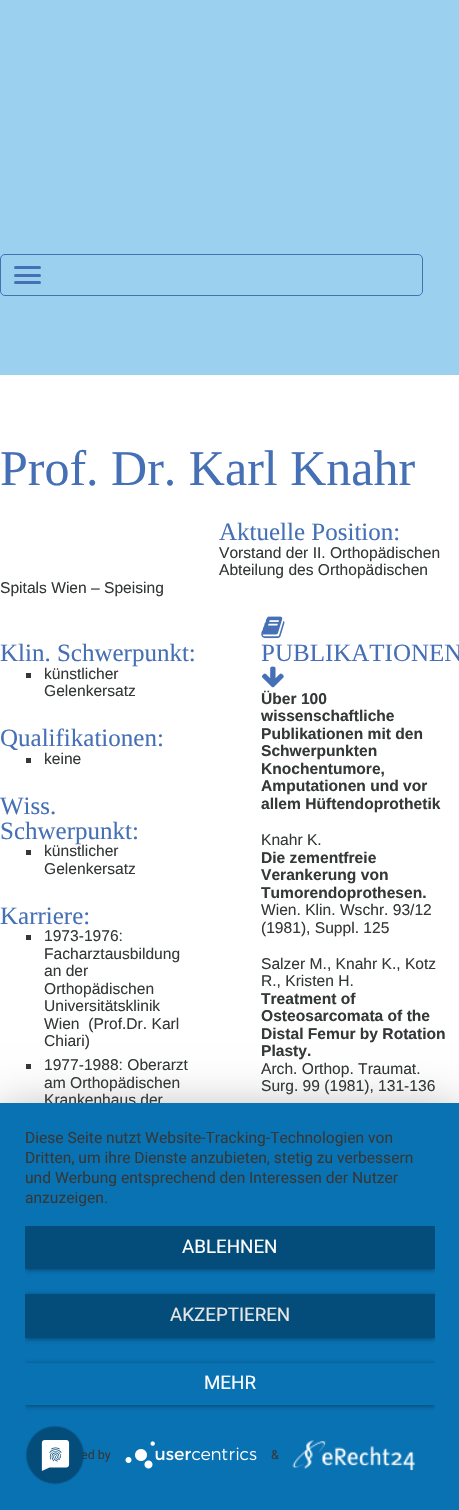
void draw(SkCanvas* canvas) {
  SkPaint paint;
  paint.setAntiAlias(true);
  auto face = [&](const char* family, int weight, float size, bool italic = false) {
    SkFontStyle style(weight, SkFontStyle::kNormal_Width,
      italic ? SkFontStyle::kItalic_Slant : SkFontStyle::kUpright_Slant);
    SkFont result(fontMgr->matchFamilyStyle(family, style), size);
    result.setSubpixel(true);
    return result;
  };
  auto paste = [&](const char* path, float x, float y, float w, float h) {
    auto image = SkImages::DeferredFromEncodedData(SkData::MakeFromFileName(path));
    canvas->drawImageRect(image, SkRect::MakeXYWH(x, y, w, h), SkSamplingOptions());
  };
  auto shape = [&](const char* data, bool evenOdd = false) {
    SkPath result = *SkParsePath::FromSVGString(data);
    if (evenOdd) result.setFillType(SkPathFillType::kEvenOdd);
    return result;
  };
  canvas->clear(0xffffffff);
  paint.setColor(0xff9cd0ef);
  canvas->drawRect(SkRect::MakeXYWH(0, 0, 459, 375), paint);
  paint.setStroke(true);
  paint.setStrokeWidth(1);
  paint.setColor(0xff4670b6);
  canvas->drawRoundRect(SkRect::MakeXYWH(0.5f, 254.5f, 422, 41), 4.5f, 4.5f, paint);
  paint.setStroke(false);
  canvas->drawRoundRect(SkRect::MakeXYWH(14, 266, 27, 3), 1.5f, 1.5f, paint);
  canvas->drawRoundRect(SkRect::MakeXYWH(14, 274, 27, 3), 1.5f, 1.5f, paint);
  canvas->drawRoundRect(SkRect::MakeXYWH(14, 281, 27, 3), 1.5f, 1.5f, paint);
  {
    const struct { float x, y, w, h; SkColor color; } items[] = {
      {26, 673, 5, 5, 0xff343838},
      {26, 758, 5, 5, 0xff343838},
      {26, 850, 5, 5, 0xff343838},
      {26, 935, 5, 5, 0xff343838},
      {26, 1064, 5, 5, 0xff343838},
    };
    for (auto [x, y, w, h, color] : items) {
      paint.setColor(color);
      canvas->drawRect(SkRect::MakeXYWH(x, y, w, h), paint);
    }
  }
  paste("img/1.png", 261, 616, 24, 23);
  paste("img/2.png", 262, 666, 22, 22);
  paint.setColor(0x4d000000);
  paint.setMaskFilter(SkMaskFilter::MakeBlur(kNormal_SkBlurStyle, 22.5f));
  canvas->drawRect(SkRect::MakeXYWH(0, 1110, 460, 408), paint);
  paint.setMaskFilter(nullptr);
  auto f0 = face("Liberation Serif", 400, 50);
  paint.setColor(0xff4670b6);
  canvas->drawString("Prof. Dr. Karl Knahr", 0, 485, f0, paint);
  auto f1 = face("Liberation Serif", 400, 25);
  canvas->drawString("Aktuelle Position:", 219, 540, f1, paint);
  auto f2 = face("Liberation Sans", 400, 15.6f);
  paint.setColor(0xff343838);
  {
    const struct { const char* s; float x, y; } items[] = {
      {"Vorstand der II. Orthopädischen", 219, 558},
      {"Abteilung des Orthopädischen", 219, 575},
      {"Spitals Wien – Speising", 0, 593},
    };
    for (auto [s, x, y] : items) {
      canvas->drawString(s, x, y, f2, paint);
    }
  }
  paint.setColor(0xff4670b6);
  canvas->drawString("Klin. Schwerpunkt:", 0, 661, f1, paint);
  paint.setColor(0xff343838);
  canvas->drawString("künstlicher", 44, 679, f2, paint);
  canvas->drawString("Gelenkersatz", 44, 696, f2, paint);
  paint.setColor(0xff4670b6);
  canvas->drawString("Qualifikationen:", 0, 746, f1, paint);
  paint.setColor(0xff343838);
  canvas->drawString("keine", 44, 764, f2, paint);
  paint.setColor(0xff4670b6);
  canvas->drawString("Wiss.", 0, 814, f1, paint);
  canvas->drawString("Schwerpunkt:", 0, 839, f1, paint);
  paint.setColor(0xff343838);
  canvas->drawString("künstlicher", 44, 856, f2, paint);
  canvas->drawString("Gelenkersatz", 44, 874, f2, paint);
  paint.setColor(0xff4670b6);
  canvas->drawString("Karriere:", 0, 924, f1, paint);
  paint.setColor(0xff343838);
  {
    const struct { const char* s; float x, y; } items[] = {
      {"1973-1976:", 44, 941},
      {"Facharztausbildung", 44, 959},
      {"an der", 44, 976},
      {"Orthopädischen", 44, 994},
      {"Universitätsklinik", 44, 1011},
      {"Wien  (Prof.Dr. Karl", 44, 1029},
      {"Chiari)", 44, 1046},
      {"1977-1988: Oberarzt", 44, 1070},
      {"am Orthopädischen", 44, 1088},
      {"Krankenhaus der", 44, 1105},
    };
    for (auto [s, x, y] : items) {
      canvas->drawString(s, x, y, f2, paint);
    }
  }
  paint.setColor(0xff4670b6);
  canvas->drawString("PUBLIKATIONEN", 261, 661, f1, paint);
  auto f3 = face("Liberation Sans", 700, 15.6f);
  paint.setColor(0xff343838);
  {
    const struct { const char* s; float x, y; } items[] = {
      {"Über 100", 261, 704},
      {"wissenschaftliche", 261, 721},
      {"Publikationen mit den", 261, 739},
      {"Schwerpunkten", 261, 756},
      {"Knochentumore,", 261, 774},
      {"Amputationen und vor", 261, 791},
      {"allem Hüftendoprothetik", 261, 809},
    };
    for (auto [s, x, y] : items) {
      canvas->drawString(s, x, y, f3, paint);
    }
  }
  canvas->drawString("Knahr K.", 261, 845, f2, paint);
  {
    const struct { const char* s; float x, y; } items[] = {
      {"Die zementfreie", 261, 863},
      {"Verankerung von", 261, 880},
      {"Tumorendoprothesen.", 261, 898},
    };
    for (auto [s, x, y] : items) {
      canvas->drawString(s, x, y, f3, paint);
    }
  }
  {
    const struct { const char* s; float x, y; } items[] = {
      {"Wien. Klin. Wschr. 93/12", 261, 915},
      {"(1981), Suppl. 125", 261, 933},
      {"Salzer M., Knahr K., Kotz", 261, 969},
      {"R., Kristen H.", 261, 986},
    };
    for (auto [s, x, y] : items) {
      canvas->drawString(s, x, y, f2, paint);
    }
  }
  {
    const struct { const char* s; float x, y; } items[] = {
      {"Treatment of", 261, 1004},
      {"Osteosarcomata of the", 261, 1021},
      {"Distal Femur by Rotation", 261, 1039},
      {"Plasty.", 261, 1056},
    };
    for (auto [s, x, y] : items) {
      canvas->drawString(s, x, y, f3, paint);
    }
  }
  canvas->drawString("Arch. Orthop. Traumat.", 261, 1074, f2, paint);
  canvas->drawString("Surg. 99 (1981), 131-136", 261, 1091, f2, paint);
  paint.setColor(0xff0972b3);
  canvas->drawRect(SkRect::MakeXYWH(0, 1103, 459, 407), paint);
  auto f4 = face("Roboto", 400, 15.6f);
  paint.setColor(0xff343838);
  {
    const struct { const char* s; float x, y; } items[] = {
      {"Diese Seite nutzt Website-Tracking-Technologien von", 25, 1143},
      {"Dritten, um ihre Dienste anzubieten, stetig zu verbessern", 25, 1163},
      {"und Werbung entsprechend den Interessen der Nutzer", 25, 1183},
      {"anzuzeigen.", 25, 1203},
    };
    for (auto [s, x, y] : items) {
      canvas->drawString(s, x, y, f4, paint);
    }
  }
  canvas->save();
  canvas->clipRect(SkRect::MakeXYWH(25, 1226, 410, 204));
  paint.setColor(0x66000000);
  paint.setMaskFilter(SkMaskFilter::MakeBlur(kNormal_SkBlurStyle, 2.5f));
  canvas->drawRect(SkRect::MakeXYWH(25, 1228, 410, 42), paint);
  paint.setMaskFilter(nullptr);
  canvas->restore();
  paint.setColor(0xff044d7a);
  canvas->drawRect(SkRect::MakeXYWH(25, 1226, 410, 43), paint);
  auto f5 = face("Roboto", 400, 18.75f);
  paint.setColor(0xffffffff);
  canvas->drawString("ABLEHNEN", 182, 1253, f5, paint);
  canvas->save();
  canvas->clipRect(SkRect::MakeXYWH(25, 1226, 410, 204));
  paint.setColor(0x66000000);
  paint.setMaskFilter(SkMaskFilter::MakeBlur(kNormal_SkBlurStyle, 2.5f));
  canvas->drawRect(SkRect::MakeXYWH(25, 1295, 410, 44), paint);
  paint.setMaskFilter(nullptr);
  canvas->restore();
  paint.setColor(0xff044d7a);
  canvas->drawRect(SkRect::MakeXYWH(25, 1294, 410, 44), paint);
  paint.setColor(0xffe6e6e6);
  canvas->drawString("AKZEPTIEREN", 170, 1321, f5, paint);
  canvas->save();
  canvas->clipRect(SkRect::MakeXYWH(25, 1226, 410, 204));
  canvas->clipPath(shape("M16 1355H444V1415H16ZM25 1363H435V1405H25Z", true), true);
  paint.setColor(0x66000000);
  paint.setMaskFilter(SkMaskFilter::MakeBlur(kNormal_SkBlurStyle, 2.5f));
  canvas->drawRect(SkRect::MakeXYWH(25, 1364, 410, 42), paint);
  paint.setMaskFilter(nullptr);
  canvas->restore();
  paint.setColor(0xffffffff);
  canvas->drawString("MEHR", 204, 1389, f5, paint);
  auto f6 = face("Roboto", 400, 12.5f);
  paint.setColor(0xff343838);
  canvas->drawString("ed by", 81, 1459, f6, paint);
  paste("img/3.png", 125, 1441, 132, 28);
  canvas->drawString("&", 271, 1459, f6, paint);
  paste("img/4.png", 292, 1440, 123, 30);
  paste("img/5.png", 25, 1425, 60, 60);
}
